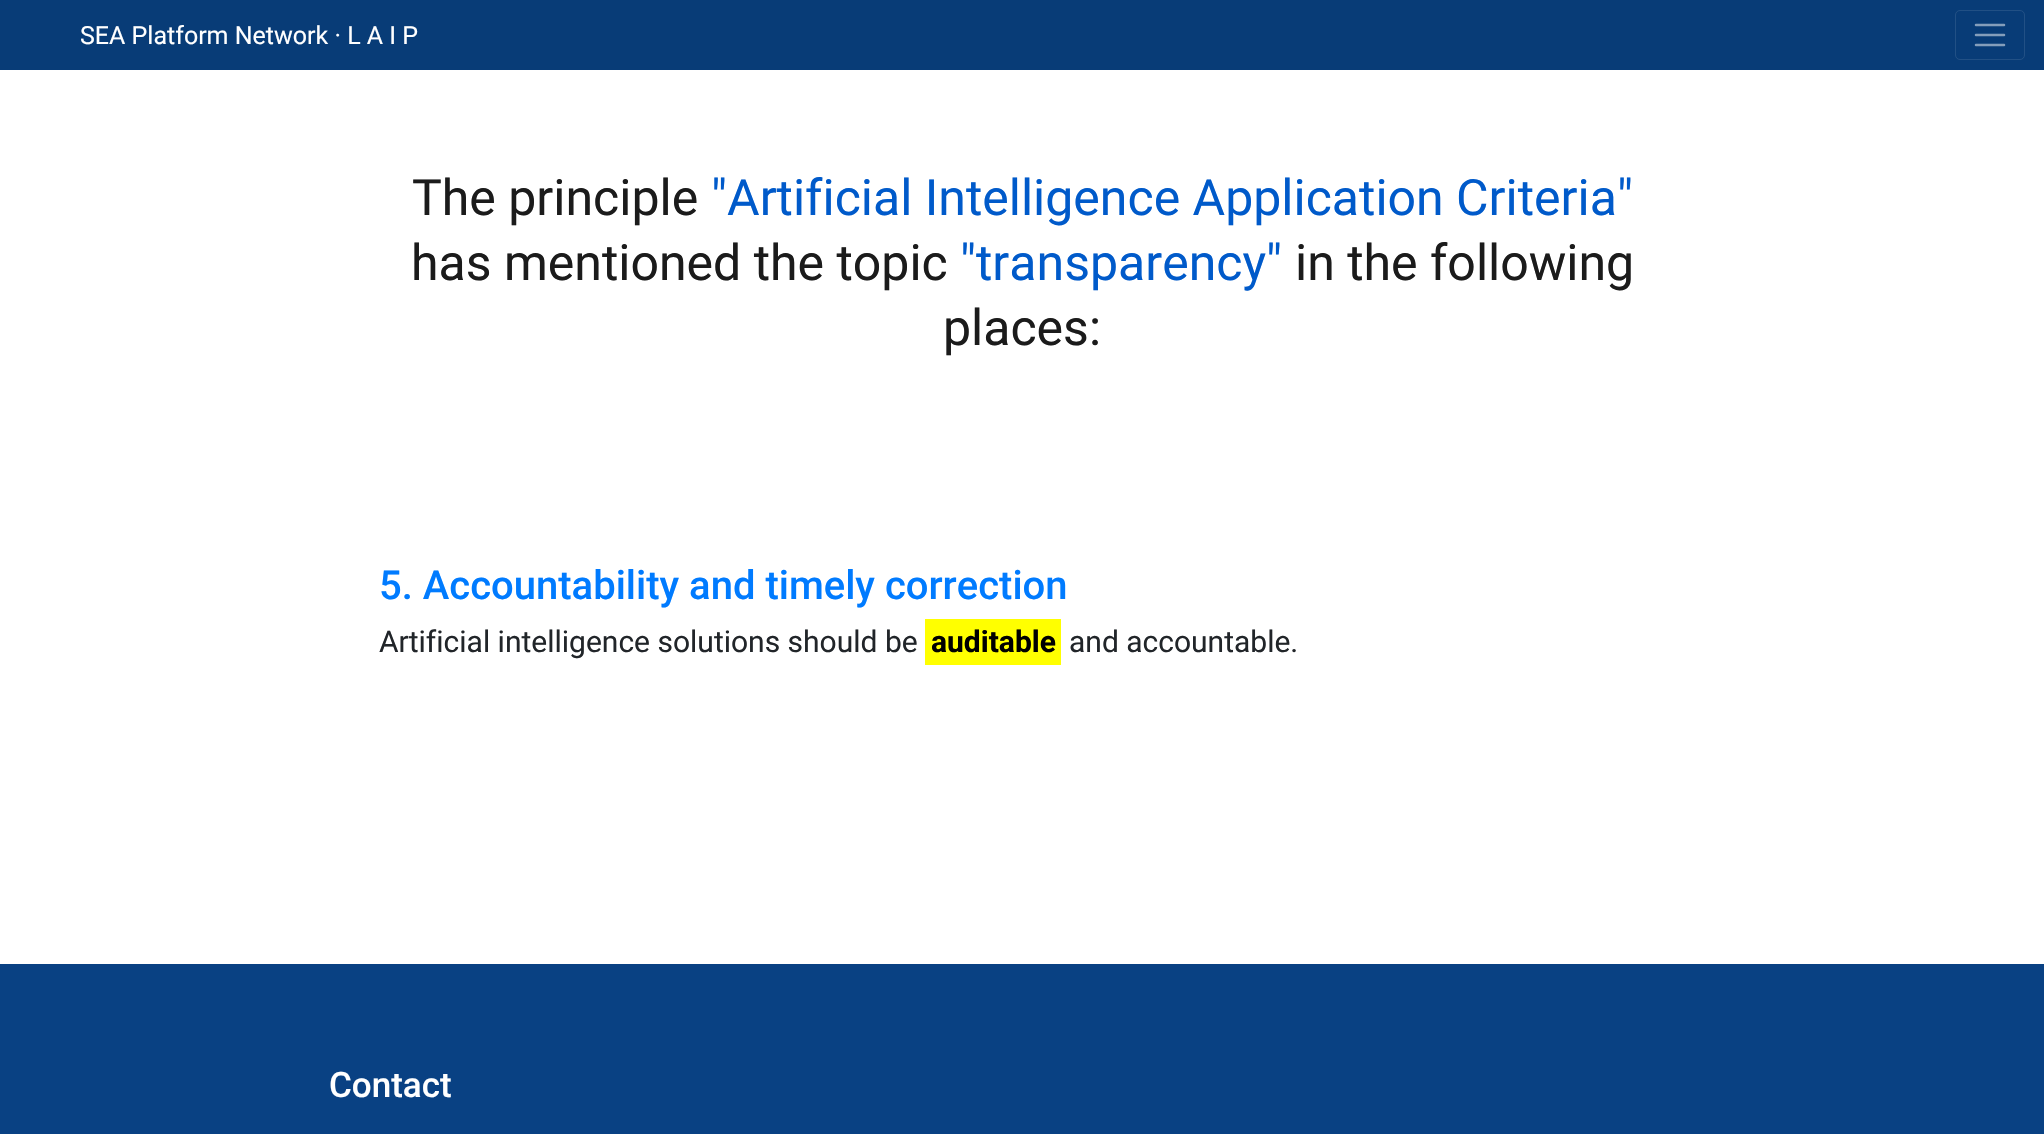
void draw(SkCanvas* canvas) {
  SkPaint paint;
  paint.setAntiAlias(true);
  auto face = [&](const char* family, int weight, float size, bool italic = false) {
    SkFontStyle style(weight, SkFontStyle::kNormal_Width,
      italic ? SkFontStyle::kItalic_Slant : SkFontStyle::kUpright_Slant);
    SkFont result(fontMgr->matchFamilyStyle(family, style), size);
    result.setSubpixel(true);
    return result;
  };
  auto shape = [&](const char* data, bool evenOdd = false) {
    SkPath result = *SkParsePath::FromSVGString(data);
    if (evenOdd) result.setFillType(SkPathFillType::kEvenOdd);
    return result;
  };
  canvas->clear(0xffffffff);
  paint.setColor(0xff083c77);
  canvas->drawRect(SkRect::MakeXYWH(0, 0, 2044, 70), paint);
  paint.setStroke(true);
  paint.setStrokeWidth(1);
  paint.setColor(0xff215085);
  canvas->drawRoundRect(SkRect::MakeXYWH(1955.5f, 10.5f, 69, 49), 4.5f, 4.5f, paint);
  paint.setStrokeWidth(2.5f);
  paint.setStrokeCap(SkPaint::kRound_Cap);
  paint.setColor(0xff849ebb);
  canvas->drawPath(shape("M1976 25H2004M1976 35H2004M1976 45H2004"), paint);
  paint.setStroke(false);
  paint.setColor(0xffffff00);
  canvas->drawRect(SkRect::MakeXYWH(925, 619, 136, 46), paint);
  paint.setColor(0xff094183);
  canvas->drawRect(SkRect::MakeXYWH(0, 964, 2044, 170), paint);
  auto f0 = face("Roboto", 400, 25);
  paint.setColor(0xffffffff);
  canvas->drawString("SEA Platform Network · L A I P", 80, 44, f0, paint);
  auto f1 = face("Roboto", 400, 50);
  paint.setColor(0xff1b1b1b);
  canvas->drawString("The principle", 412, 215, f1, paint);
  paint.setColor(0xff005aca);
  canvas->drawString("\"Artificial Intelligence Application Criteria\"", 711, 215, f1, paint);
  paint.setColor(0xff1b1b1b);
  canvas->drawString("has mentioned the topic", 411, 280, f1, paint);
  paint.setColor(0xff005aca);
  canvas->drawString("\"transparency\"", 960, 280, f1, paint);
  paint.setColor(0xff1b1b1b);
  canvas->drawString("in the following", 1295, 280, f1, paint);
  canvas->drawString("places:", 943, 345, f1, paint);
  auto f2 = face("Roboto", 500, 40);
  paint.setColor(0xff007bff);
  canvas->drawString("5. Accountability and timely correction", 379, 599, f2, paint);
  auto f3 = face("Roboto", 400, 30);
  paint.setColor(0xff212529);
  canvas->drawString("Artificial intelligence solutions should be", 379, 652, f3, paint);
  auto f4 = face("Roboto", 700, 30);
  paint.setColor(0xff000000);
  canvas->drawString("auditable", 931, 652, f4, paint);
  paint.setColor(0xff212529);
  canvas->drawString("and accountable.", 1069, 652, f3, paint);
  auto f5 = face("Roboto", 500, 35);
  paint.setColor(0xffffffff);
  canvas->drawString("Contact", 329, 1097, f5, paint);
}
